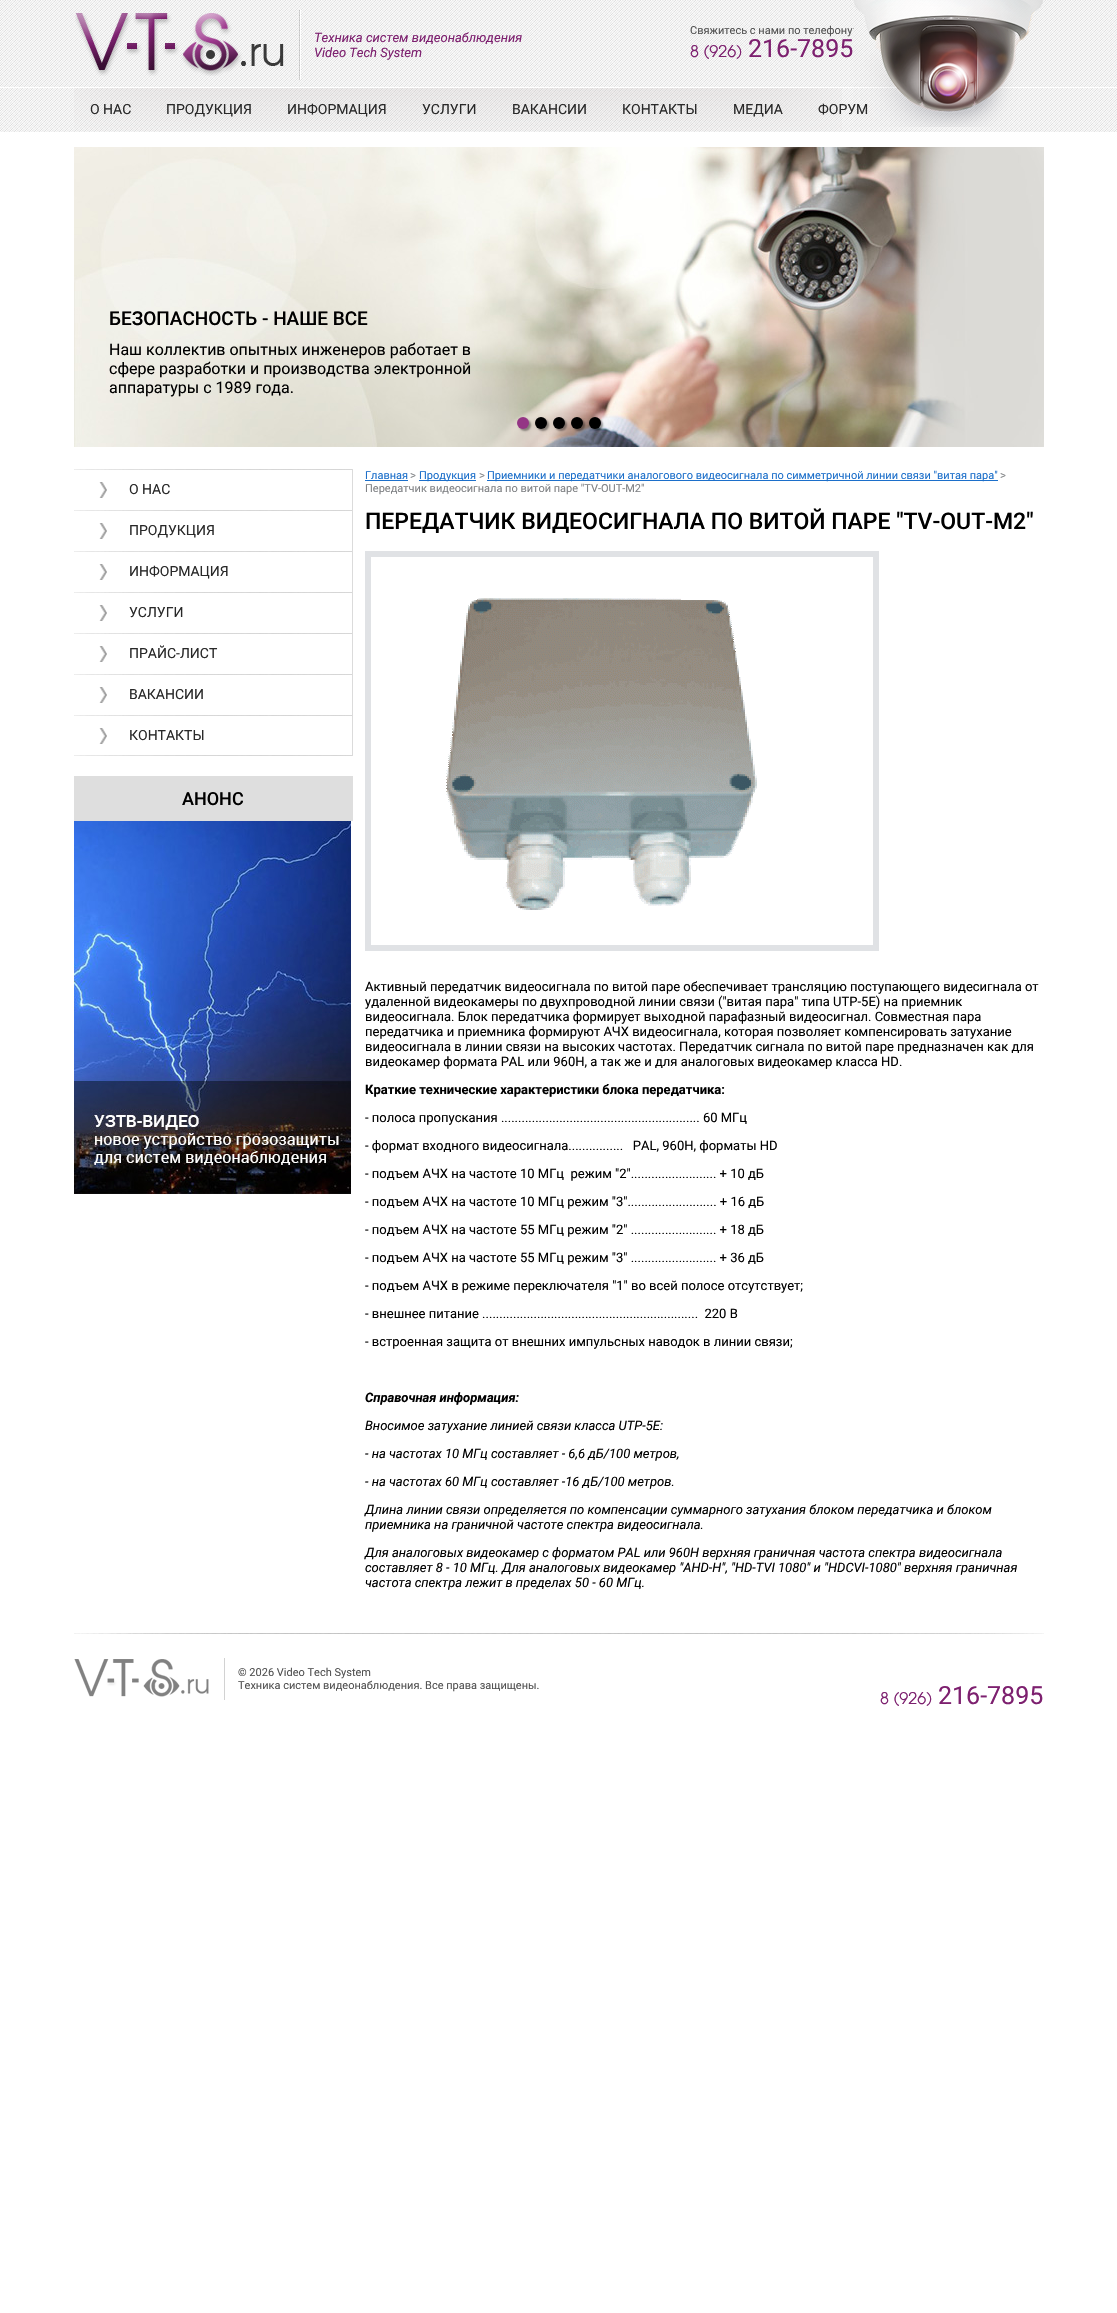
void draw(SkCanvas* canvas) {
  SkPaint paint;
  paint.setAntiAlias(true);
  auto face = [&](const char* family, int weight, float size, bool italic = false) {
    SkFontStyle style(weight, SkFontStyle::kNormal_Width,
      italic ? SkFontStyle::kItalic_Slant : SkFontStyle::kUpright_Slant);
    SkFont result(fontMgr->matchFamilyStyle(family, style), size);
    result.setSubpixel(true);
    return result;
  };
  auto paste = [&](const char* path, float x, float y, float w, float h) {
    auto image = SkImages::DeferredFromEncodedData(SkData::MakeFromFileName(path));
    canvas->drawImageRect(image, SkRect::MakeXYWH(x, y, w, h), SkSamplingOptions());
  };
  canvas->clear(0xffffffff);
  paste("img/1.png", 0, 0, 1117, 132);
  paste("img/2.png", 299, 10, 2, 70);
  paste("img/3.png", 75, 13, 209, 63);
  paint.setColor(0xffffffff);
  canvas->drawRect(SkRect::MakeXYWH(0, 87, 1117, 1), paint);
  paste("img/4.png", 853, 0, 190, 127);
  paste("img/5.png", 74, 88, 768, 43);
  paste("img/6.png", 74, 147, 970, 300);
  paint.setColor(0x66000000);
  paint.setMaskFilter(SkMaskFilter::MakeBlur(kNormal_SkBlurStyle, 1));
  canvas->drawRoundRect(SkRect::MakeXYWH(519, 419, 12, 12), 6, 6, paint);
  paint.setMaskFilter(nullptr);
  paint.setColor(0xff943585);
  canvas->drawCircle(523, 423, 6, paint);
  paint.setColor(0x66000000);
  paint.setMaskFilter(SkMaskFilter::MakeBlur(kNormal_SkBlurStyle, 1));
  canvas->drawRoundRect(SkRect::MakeXYWH(537, 419, 12, 12), 6, 6, paint);
  paint.setMaskFilter(nullptr);
  paint.setColor(0xff000000);
  canvas->drawCircle(541, 423, 6, paint);
  paint.setColor(0x66000000);
  paint.setMaskFilter(SkMaskFilter::MakeBlur(kNormal_SkBlurStyle, 1));
  canvas->drawRoundRect(SkRect::MakeXYWH(555, 419, 12, 12), 6, 6, paint);
  paint.setMaskFilter(nullptr);
  paint.setColor(0xff000000);
  canvas->drawCircle(559, 423, 6, paint);
  paint.setColor(0x66000000);
  paint.setMaskFilter(SkMaskFilter::MakeBlur(kNormal_SkBlurStyle, 1));
  canvas->drawRoundRect(SkRect::MakeXYWH(573, 419, 12, 12), 6, 6, paint);
  paint.setMaskFilter(nullptr);
  paint.setColor(0xff000000);
  canvas->drawCircle(577, 423, 6, paint);
  paint.setColor(0x66000000);
  paint.setMaskFilter(SkMaskFilter::MakeBlur(kNormal_SkBlurStyle, 1));
  canvas->drawRoundRect(SkRect::MakeXYWH(591, 419, 12, 12), 6, 6, paint);
  paint.setMaskFilter(nullptr);
  paint.setColor(0xff000000);
  canvas->drawCircle(595, 423, 6, paint);
  paste("img/7.png", 74, 755, 278, 1);
  paint.setColor(0xffdbdbdb);
  canvas->drawRect(SkRect::MakeXYWH(352, 469, 1, 287), paint);
  paste("img/8.png", 74, 469, 278, 1);
  paste("img/9.png", 99, 482, 8, 16);
  paste("img/8.png", 74, 510, 278, 1);
  paste("img/9.png", 99, 523, 8, 16);
  paste("img/8.png", 74, 551, 278, 1);
  paste("img/9.png", 99, 564, 8, 16);
  paste("img/8.png", 74, 592, 278, 1);
  paste("img/9.png", 99, 605, 8, 16);
  paste("img/8.png", 74, 633, 278, 1);
  paste("img/9.png", 99, 646, 8, 16);
  paste("img/8.png", 74, 674, 278, 1);
  paste("img/9.png", 99, 687, 8, 16);
  paste("img/8.png", 74, 715, 278, 1);
  paste("img/9.png", 99, 728, 8, 16);
  paint.setColor(0xffdedede);
  canvas->drawRect(SkRect::MakeXYWH(74, 776, 279, 45), paint);
  paste("img/10.png", 74, 821, 277, 373);
  {
    const struct { float x, y, w, h; SkColor color; } items[] = {
      {365, 480, 43, 1, 0xff1c6fca},
      {419, 480, 57, 1, 0xff1c6fca},
      {487, 480, 511, 1, 0xff1c6fca},
    };
    for (auto [x, y, w, h, color] : items) {
      paint.setColor(color);
      canvas->drawRect(SkRect::MakeXYWH(x, y, w, h), paint);
    }
  }
  paint.setStroke(true);
  paint.setStrokeWidth(6);
  paint.setColor(0xffe0e2e5);
  canvas->drawRect(SkRect::MakeXYWH(368, 554, 508, 394), paint);
  paste("img/11.png", 446, 598, 311, 312);
  paste("img/12.png", 74, 1633, 970, 1);
  paint.setStroke(false);
  paint.setColor(0xffd2d2d2);
  canvas->drawRect(SkRect::MakeXYWH(224, 1658, 1, 42), paint);
  paste("img/13.png", 74, 1659, 135, 38);
  auto f0 = face("Roboto", 400, 13, true);
  paint.setColor(0xff7d206f);
  canvas->drawString("Техника систем видеонаблюдения", 314, 42, f0, paint);
  canvas->drawString("Video Tech System", 314, 57, f0, paint);
  auto f1 = face("Roboto", 400, 11);
  paint.setColor(0xff525252);
  canvas->drawString("Свяжитесь с нами по телефону", 690, 34, f1, paint);
  auto f2 = face("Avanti", 400, 17);
  paint.setColor(0xff7d206f);
  canvas->drawString("8 (926)", 690, 57, f2, paint);
  auto f3 = face("Roboto", 400, 25);
  canvas->drawString("216-7895", 748, 57, f3, paint);
  auto f4 = face("Roboto", 400, 14);
  paint.setColor(0xff292929);
  {
    const struct { const char* s; float x, y; } items[] = {
      {"О НАС", 90, 114},
      {"ПРОДУКЦИЯ", 166, 114},
      {"ИНФОРМАЦИЯ", 287, 114},
      {"УСЛУГИ", 422, 114},
      {"ВАКАНСИИ", 512, 114},
      {"КОНТАКТЫ", 622, 114},
      {"МЕДИА", 733, 114},
      {"ФОРУМ", 818, 114},
    };
    for (auto [s, x, y] : items) {
      canvas->drawString(s, x, y, f4, paint);
    }
  }
  auto f5 = face("Roboto", 500, 19);
  paint.setColor(0xff000000);
  canvas->drawString("БЕЗОПАСНОСТЬ - НАШЕ ВСЕ", 109, 325, f5, paint);
  auto f6 = face("Roboto", 400, 16);
  {
    const struct { const char* s; float x, y; } items[] = {
      {"Наш коллектив опытных инженеров работает в", 109, 355},
      {"сфере разработки и производства электронной", 109, 374},
      {"аппаратуры с 1989 года.", 109, 393},
    };
    for (auto [s, x, y] : items) {
      canvas->drawString(s, x, y, f6, paint);
    }
  }
  paint.setColor(0xff292929);
  {
    const struct { const char* s; float x, y; } items[] = {
      {"О НАС", 129, 494},
      {"ПРОДУКЦИЯ", 129, 535},
      {"ИНФОРМАЦИЯ", 129, 576},
      {"УСЛУГИ", 129, 617},
      {"ПРАЙС-ЛИСТ", 129, 658},
      {"ВАКАНСИИ", 129, 699},
      {"КОНТАКТЫ", 129, 740},
    };
    for (auto [s, x, y] : items) {
      canvas->drawString(s, x, y, f4, paint);
    }
  }
  auto f7 = face("Roboto", 500, 18);
  paint.setColor(0xff000000);
  canvas->drawString("АНОНС", 182, 805, f7, paint);
  paint.setColor(0xff1c6fca);
  canvas->drawString("Главная", 365, 479, f1, paint);
  paint.setColor(0xff808285);
  canvas->drawString(">", 410, 479, f1, paint);
  paint.setColor(0xff1c6fca);
  canvas->drawString("Продукция", 419, 479, f1, paint);
  paint.setColor(0xff808285);
  canvas->drawString(">", 479, 479, f1, paint);
  paint.setColor(0xff1c6fca);
  canvas->drawString("Приемники и передатчики аналогового видеосигнала по симметричной линии связи \"витая пара\"", 487, 479, f1, paint);
  paint.setColor(0xff808285);
  canvas->drawString(">", 1000, 479, f1, paint);
  canvas->drawString("Передатчик видеосигнала по витой паре \"TV-OUT-M2\"", 365, 492, f1, paint);
  auto f8 = face("Roboto", 500, 23);
  paint.setColor(0xff000000);
  canvas->drawString("ПЕРЕДАТЧИК ВИДЕОСИГНАЛА ПО ВИТОЙ ПАРЕ \"TV-OUT-M2\"", 365, 529, f8, paint);
  auto f9 = face("Roboto", 400, 13);
  {
    const struct { const char* s; float x, y; } items[] = {
      {"Активный передатчик видеосигнала по витой паре обеспечивает трансляцию поступающего видесигнала от", 365, 991},
      {"удаленной видеокамеры по двухпроводной линии связи (\"витая пара\" типа UTP-5E) на приемник", 365, 1006},
      {"видеосигнала. Блок передатчика формирует выходной парафазный видеосигнал. Совместная пара", 365, 1021},
      {"передатчика и приемника формируют АЧХ видеосигнала, которая позволяет компенсировать затухание", 365, 1036},
      {"видеосигнала в линии связи на высоких частотах. Передатчик сигнала по витой паре предназначен как для", 365, 1051},
      {"видеокамер формата PAL или 960H, а так же и для аналоговых видеокамер класса HD.", 365, 1066},
    };
    for (auto [s, x, y] : items) {
      canvas->drawString(s, x, y, f9, paint);
    }
  }
  auto f10 = face("Roboto", 700, 13);
  canvas->drawString("Краткие технические характеристики блока передатчика:", 365, 1094, f10, paint);
  {
    const struct { const char* s; float x, y; } items[] = {
      {"- полоса пропускания .......................................................... 60 МГц", 365, 1122},
      {"- формат входного видеосигнала................   PAL, 960H, форматы HD", 365, 1150},
      {"- подъем АЧХ на частоте 10 МГц  режим \"2\"......................... + 10 дБ", 365, 1178},
      {"- подъем АЧХ на частоте 10 МГц режим \"3\".......................... + 16 дБ", 365, 1206},
      {"- подъем АЧХ на частоте 55 МГц режим \"2\" ......................... + 18 дБ", 365, 1234},
      {"- подъем АЧХ на частоте 55 МГц режим \"3\" ......................... + 36 дБ", 365, 1262},
      {"- подъем АЧХ в режиме переключателя \"1\" во всей полосе отсутствует;", 365, 1290},
      {"- внешнее питание ...............................................................  220 В", 365, 1318},
      {"- встроенная защита от внешних импульсных наводок в линии связи;", 365, 1346},
    };
    for (auto [s, x, y] : items) {
      canvas->drawString(s, x, y, f9, paint);
    }
  }
  auto f11 = face("Roboto", 700, 13, true);
  canvas->drawString("Справочная информация:", 365, 1402, f11, paint);
  {
    const struct { const char* s; float x, y; } items[] = {
      {"Вносимое затухание линией связи класса UTP-5E:", 365, 1430},
      {"- на частотах 10 МГц составляет - 6,6 дБ/100 метров,", 365, 1458},
      {"- на частотах 60 МГц составляет -16 дБ/100 метров.", 365, 1486},
      {"Длина линии связи определяется по компенсации суммарного затухания блоком передатчика и блоком", 365, 1514},
      {"приемника на граничной частоте спектра видеосигнала.", 365, 1529},
      {"Для аналоговых видеокамер с форматом PAL или 960H верхняя граничная частота спектра видеосигнала", 365, 1557},
      {"составляет 8 - 10 МГц. Для аналоговых видеокамер \"AHD-H\", \"HD-TVI 1080\" и \"HDCVI-1080\" верхняя граничная", 365, 1572},
      {"частота спектра лежит в пределах 50 - 60 МГц.", 365, 1587},
    };
    for (auto [s, x, y] : items) {
      canvas->drawString(s, x, y, f0, paint);
    }
  }
  paint.setColor(0xff525252);
  canvas->drawString("© 2026 Video Tech System", 238, 1676, f1, paint);
  canvas->drawString("Техника систем видеонаблюдения. Все права защищены.", 238, 1689, f1, paint);
  paint.setColor(0xff7d206f);
  canvas->drawString("8 (926)", 880, 1704, f2, paint);
  canvas->drawString("216-7895", 938, 1704, f3, paint);
}
